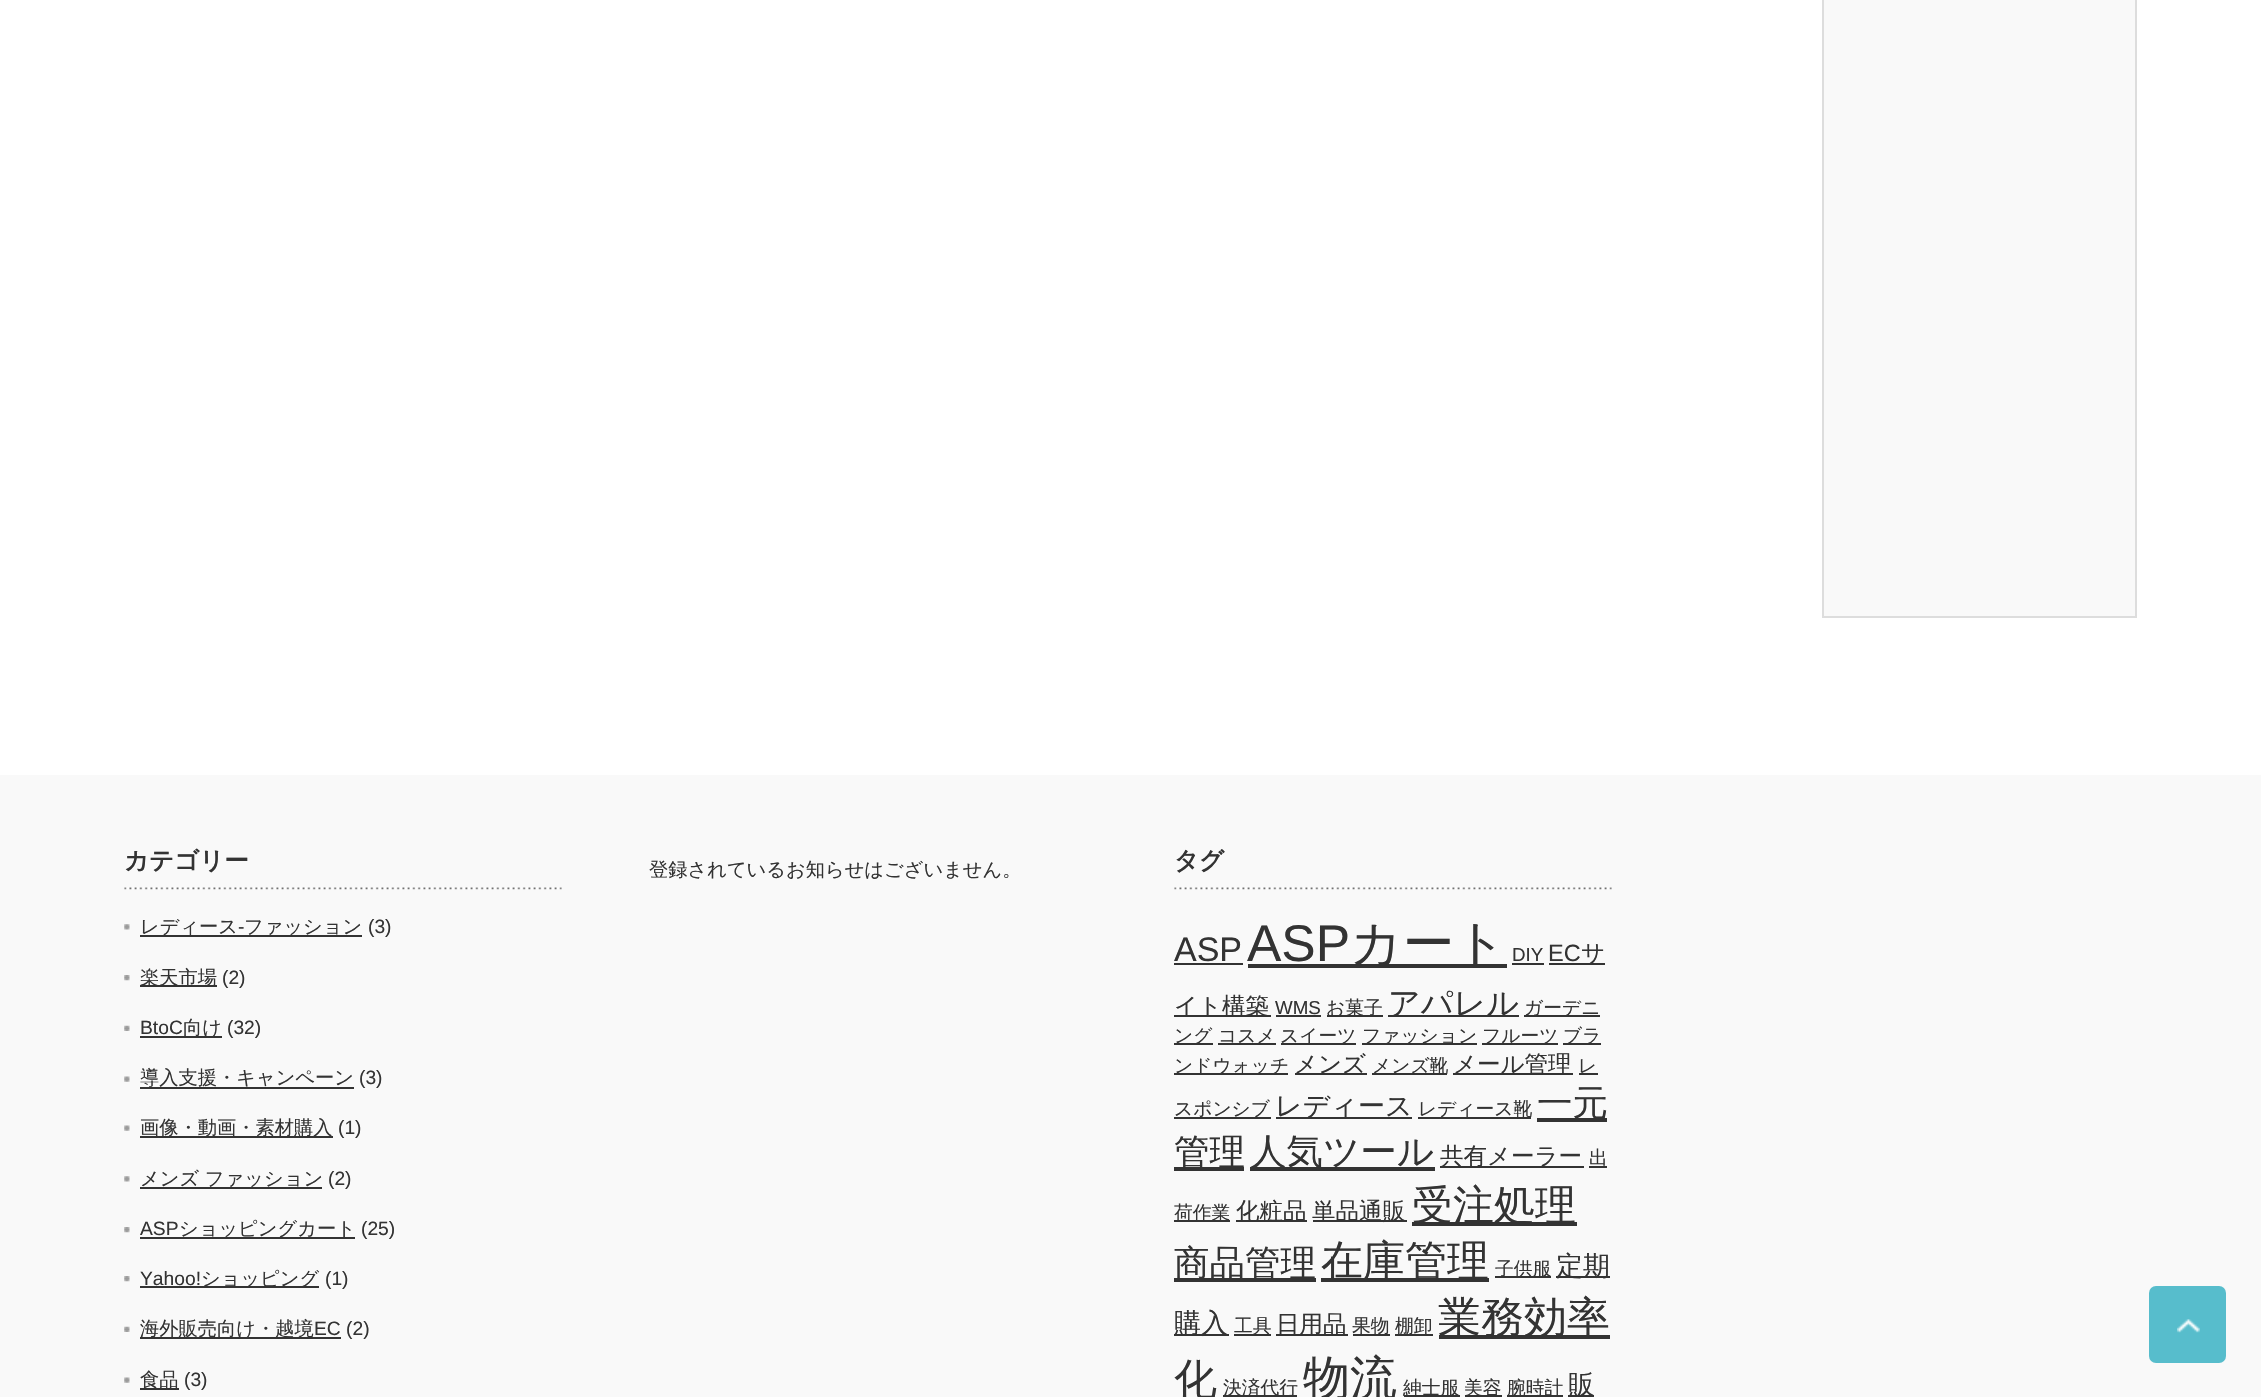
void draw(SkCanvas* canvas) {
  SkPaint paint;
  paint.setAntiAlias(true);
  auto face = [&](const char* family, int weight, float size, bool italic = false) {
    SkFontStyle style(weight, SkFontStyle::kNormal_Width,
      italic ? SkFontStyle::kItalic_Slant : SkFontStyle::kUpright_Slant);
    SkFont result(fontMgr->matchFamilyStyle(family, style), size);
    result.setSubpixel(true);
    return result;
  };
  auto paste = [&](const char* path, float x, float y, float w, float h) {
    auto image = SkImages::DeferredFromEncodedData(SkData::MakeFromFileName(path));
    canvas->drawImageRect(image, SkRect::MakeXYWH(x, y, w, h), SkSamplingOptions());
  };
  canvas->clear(0xffffffff);
  paint.setColor(0xfff9f9f9);
  canvas->drawRect(SkRect::MakeXYWH(1823, -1, 313, 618), paint);
  paint.setStroke(true);
  paint.setStrokeWidth(2);
  paint.setColor(0xffdddddd);
  canvas->drawRect(SkRect::MakeXYWH(1823, -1, 313, 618), paint);
  paint.setStroke(false);
  paint.setColor(0xfff9f9f9);
  canvas->drawRect(SkRect::MakeXYWH(0, 775, 2261, 622), paint);
  paste("img/1.png", 124, 887, 438, 3);
  paste("img/2.png", 124, 924, 6, 6);
  paint.setColor(0xff333333);
  canvas->drawRect(SkRect::MakeXYWH(140, 935, 222, 2), paint);
  paste("img/3.png", 124, 975, 6, 6);
  canvas->drawRect(SkRect::MakeXYWH(140, 985, 77, 2), paint);
  paste("img/4.png", 124, 1025, 6, 6);
  canvas->drawRect(SkRect::MakeXYWH(140, 1036, 82, 2), paint);
  paste("img/5.png", 124, 1076, 6, 6);
  canvas->drawRect(SkRect::MakeXYWH(140, 1087, 214, 2), paint);
  paste("img/5.png", 124, 1125, 6, 6);
  canvas->drawRect(SkRect::MakeXYWH(140, 1136, 193, 2), paint);
  paste("img/2.png", 124, 1176, 6, 6);
  canvas->drawRect(SkRect::MakeXYWH(140, 1187, 182, 2), paint);
  paste("img/3.png", 124, 1227, 6, 6);
  canvas->drawRect(SkRect::MakeXYWH(140, 1237, 215, 2), paint);
  paste("img/3.png", 124, 1276, 6, 6);
  canvas->drawRect(SkRect::MakeXYWH(140, 1286, 179, 2), paint);
  paste("img/4.png", 124, 1326, 6, 6);
  canvas->drawRect(SkRect::MakeXYWH(140, 1337, 201, 2), paint);
  paste("img/5.png", 124, 1377, 6, 6);
  canvas->drawRect(SkRect::MakeXYWH(140, 1388, 39, 2), paint);
  paste("img/6.png", 1174, 887, 438, 3);
  {
    const struct { float x, y, w, h; SkColor color; } items[] = {
      {1174, 963, 69, 2, 0xff333333},
      {1248, 964, 259, 4, 0xff333333},
      {1512, 963, 32, 2, 0xff333333},
      {1549, 963, 56, 2, 0xff333333},
      {1174, 1015, 97, 2, 0xff333333},
      {1276, 1015, 45, 2, 0xff333333},
      {1327, 1015, 56, 2, 0xff333333},
      {1388, 1015, 131, 2, 0xff333333},
      {1524, 1015, 76, 2, 0xff333333},
      {1174, 1043, 39, 2, 0xff333333},
      {1218, 1043, 58, 2, 0xff333333},
      {1281, 1043, 75, 2, 0xff333333},
      {1362, 1043, 115, 2, 0xff333333},
      {1482, 1043, 76, 2, 0xff333333},
      {1563, 1043, 38, 2, 0xff333333},
      {1174, 1073, 114, 2, 0xff333333},
      {1295, 1073, 72, 2, 0xff333333},
      {1372, 1073, 75, 2, 0xff333333},
      {1453, 1073, 120, 2, 0xff333333},
      {1579, 1073, 19, 2, 0xff333333},
      {1174, 1117, 97, 2, 0xff333333},
      {1276, 1117, 136, 2, 0xff333333},
      {1418, 1117, 113, 2, 0xff333333},
      {1537, 1118, 70, 4, 0xff333333},
      {1174, 1167, 70, 4, 0xff333333},
      {1250, 1167, 185, 4, 0xff333333},
      {1440, 1166, 144, 2, 0xff333333},
      {1589, 1166, 18, 2, 0xff333333},
      {1174, 1220, 56, 2, 0xff333333},
      {1236, 1220, 71, 2, 0xff333333},
      {1313, 1220, 94, 2, 0xff333333},
      {1412, 1222, 165, 4, 0xff333333},
      {1174, 1278, 142, 4, 0xff333333},
      {1321, 1278, 168, 4, 0xff333333},
      {1495, 1276, 56, 2, 0xff333333},
      {1556, 1276, 54, 2, 0xff333333},
      {1174, 1334, 55, 2, 0xff333333},
      {1234, 1334, 37, 2, 0xff333333},
      {1276, 1334, 72, 2, 0xff333333},
      {1353, 1334, 37, 2, 0xff333333},
      {1395, 1334, 38, 2, 0xff333333},
      {1439, 1335, 171, 4, 0xff333333},
      {1223, 1395, 74, 2, 0xff333333},
      {1404, 1395, 56, 2, 0xff333333},
      {1465, 1395, 37, 2, 0xff333333},
      {1507, 1395, 56, 2, 0xff333333},
      {1568, 1395, 26, 2, 0xff333333},
    };
    for (auto [x, y, w, h, color] : items) {
      paint.setColor(color);
      canvas->drawRect(SkRect::MakeXYWH(x, y, w, h), paint);
    }
  }
  paint.setColor(0xff57bdcc);
  canvas->drawRoundRect(SkRect::MakeXYWH(2149, 1286, 77, 77), 7, 7, paint);
  paste("img/7.png", 2177, 1319, 23, 14);
  auto f0 = face("WenQuanYi Zen Hei", 700, 24.5f);
  paint.setColor(0xff333333);
  canvas->drawString("カテゴリー", 124, 869, f0, paint);
  auto f1 = face("WenQuanYi Zen Hei", 500, 19.25f);
  canvas->drawString("レディース", 140, 933, f1, paint);
  auto f2 = face("Liberation Sans", 400, 19.25f);
  canvas->drawString("-", 238, 933, f2, paint);
  canvas->drawString("ファッション", 244, 933, f1, paint);
  canvas->drawString("(3)", 368, 933, f2, paint);
  canvas->drawString("楽天市場", 140, 984, f1, paint);
  canvas->drawString("(2)", 222, 984, f2, paint);
  canvas->drawString("BtoC", 140, 1034, f2, paint);
  canvas->drawString("向け", 183, 1034, f1, paint);
  canvas->drawString("(32)", 227, 1034, f2, paint);
  canvas->drawString("導入支援・キャンペーン", 140, 1084, f1, paint);
  canvas->drawString("(3)", 359, 1084, f2, paint);
  canvas->drawString("画像・動画・素材購入", 140, 1134, f1, paint);
  canvas->drawString("(1)", 338, 1134, f2, paint);
  canvas->drawString("メンズ ファッション", 140, 1185, f1, paint);
  canvas->drawString("(2)", 328, 1185, f2, paint);
  canvas->drawString("ASP", 140, 1235, f2, paint);
  canvas->drawString("ショッピングカート", 179, 1235, f1, paint);
  canvas->drawString("(25)", 361, 1235, f2, paint);
  canvas->drawString("Yahoo!", 140, 1285, f2, paint);
  canvas->drawString("ショッピング", 201, 1285, f1, paint);
  canvas->drawString("(1)", 325, 1285, f2, paint);
  canvas->drawString("海外販売向け・越境", 140, 1335, f1, paint);
  canvas->drawString("EC (2)", 314, 1335, f2, paint);
  canvas->drawString("食品", 140, 1386, f1, paint);
  canvas->drawString("(3)", 184, 1386, f2, paint);
  canvas->drawString("登録されているお知らせはございません。", 649, 876, f1, paint);
  canvas->drawString("タグ", 1174, 869, f0, paint);
  auto f3 = face("Liberation Sans", 400, 34);
  canvas->drawString("ASP", 1174, 961, f3, paint);
  auto f4 = face("Liberation Sans", 400, 51.5f);
  canvas->drawString("ASP", 1247, 961, f4, paint);
  auto f5 = face("WenQuanYi Zen Hei", 500, 51.5f);
  canvas->drawString("カート", 1350, 961, f5, paint);
  auto f6 = face("Liberation Sans", 400, 18.75f);
  canvas->drawString("DIY", 1512, 961, f6, paint);
  auto f7 = face("Liberation Sans", 400, 23.5f);
  canvas->drawString("EC", 1548, 961, f7, paint);
  auto f8 = face("WenQuanYi Zen Hei", 500, 23.5f);
  canvas->drawString("サ", 1581, 961, f8, paint);
  canvas->drawString("イト構築", 1174, 1014, f8, paint);
  canvas->drawString("WMS", 1275, 1014, f6, paint);
  auto f9 = face("WenQuanYi Zen Hei", 500, 18.75f);
  canvas->drawString("お菓子", 1326, 1014, f9, paint);
  auto f10 = face("WenQuanYi Zen Hei", 500, 32);
  canvas->drawString("アパレル", 1388, 1014, f10, paint);
  {
    const struct { const char* s; float x, y; } items[] = {
      {"ガーデニ", 1524, 1014},
      {"ング", 1174, 1042},
      {"コスメ", 1218, 1042},
      {"スイーツ", 1280, 1042},
      {"ファッション", 1362, 1042},
      {"フルーツ", 1482, 1042},
      {"ブラ", 1563, 1042},
      {"ンドウォッチ", 1174, 1072},
    };
    for (auto [s, x, y] : items) {
      canvas->drawString(s, x, y, f9, paint);
    }
  }
  canvas->drawString("メンズ", 1294, 1072, f8, paint);
  canvas->drawString("メンズ靴", 1372, 1072, f9, paint);
  canvas->drawString("メール管理", 1453, 1072, f8, paint);
  canvas->drawString("レ", 1578, 1072, f9, paint);
  canvas->drawString("スポンシブ", 1174, 1115, f9, paint);
  auto f11 = face("WenQuanYi Zen Hei", 500, 27);
  canvas->drawString("レディース", 1275, 1115, f11, paint);
  canvas->drawString("レディース靴", 1418, 1115, f9, paint);
  auto f12 = face("WenQuanYi Zen Hei", 500, 35.5f);
  canvas->drawString("一元", 1537, 1115, f12, paint);
  canvas->drawString("管理", 1174, 1164, f12, paint);
  auto f13 = face("WenQuanYi Zen Hei", 500, 36.5f);
  canvas->drawString("人気ツール", 1250, 1164, f13, paint);
  canvas->drawString("共有メーラー", 1440, 1164, f8, paint);
  canvas->drawString("出", 1589, 1164, f9, paint);
  canvas->drawString("荷作業", 1174, 1219, f9, paint);
  canvas->drawString("化粧品", 1236, 1219, f8, paint);
  canvas->drawString("単品通販", 1312, 1219, f8, paint);
  auto f14 = face("WenQuanYi Zen Hei", 500, 41);
  canvas->drawString("受注処理", 1412, 1219, f14, paint);
  canvas->drawString("商品管理", 1174, 1275, f12, paint);
  auto f15 = face("WenQuanYi Zen Hei", 500, 42);
  canvas->drawString("在庫管理", 1321, 1275, f15, paint);
  canvas->drawString("子供服", 1495, 1275, f9, paint);
  canvas->drawString("定期", 1556, 1275, f11, paint);
  canvas->drawString("購入", 1174, 1332, f11, paint);
  canvas->drawString("工具", 1234, 1332, f9, paint);
  canvas->drawString("日用品", 1276, 1332, f8, paint);
  canvas->drawString("果物", 1352, 1332, f9, paint);
  canvas->drawString("棚卸", 1395, 1332, f9, paint);
  auto f16 = face("WenQuanYi Zen Hei", 500, 43);
  canvas->drawString("業務効率", 1438, 1332, f16, paint);
  canvas->drawString("化", 1174, 1394, f16, paint);
  canvas->drawString("決済代行", 1223, 1394, f9, paint);
  auto f17 = face("WenQuanYi Zen Hei", 500, 47);
  canvas->drawString("物流", 1303, 1394, f17, paint);
  {
    const struct { const char* s; float x, y; } items[] = {
      {"紳士服", 1403, 1394},
      {"美容", 1464, 1394},
      {"腕時計", 1507, 1394},
    };
    for (auto [s, x, y] : items) {
      canvas->drawString(s, x, y, f9, paint);
    }
  }
  canvas->drawString("販", 1568, 1394, f11, paint);
}
